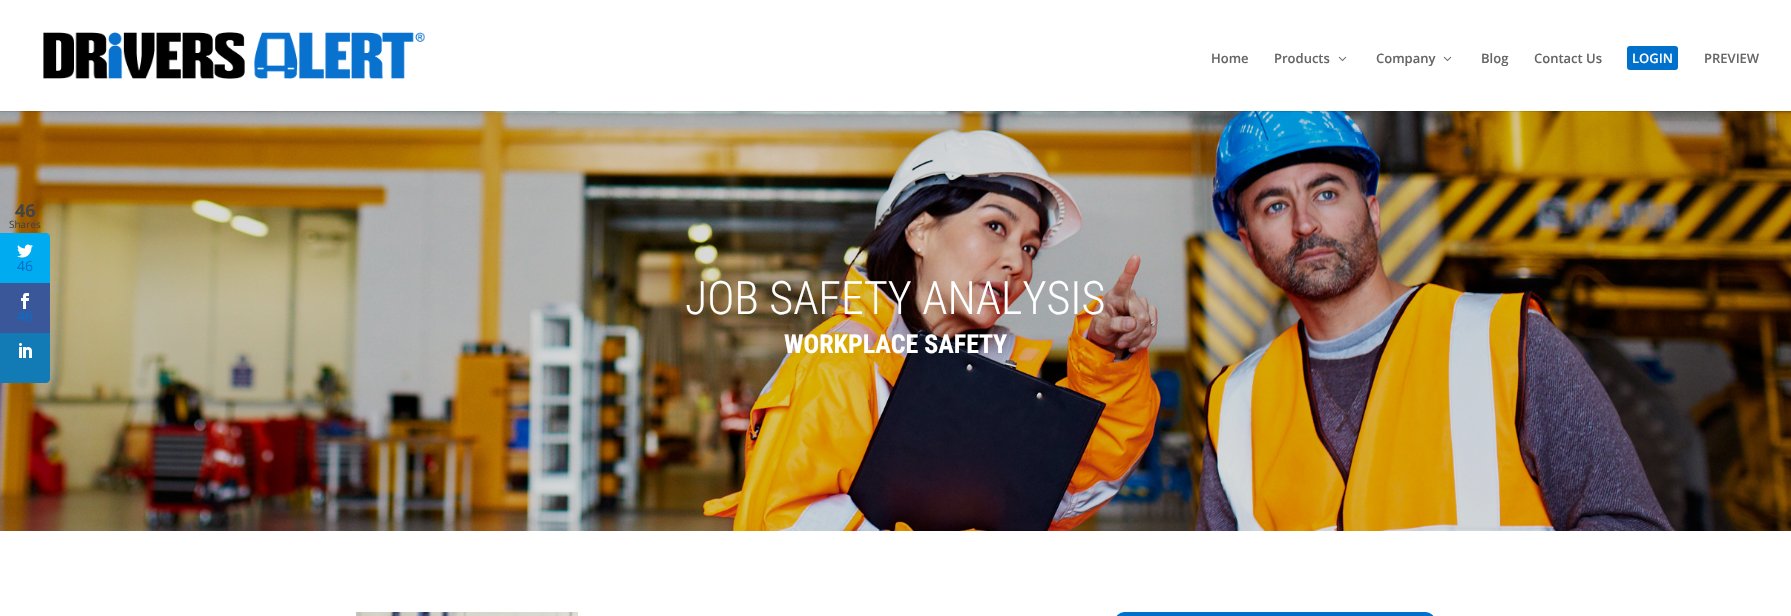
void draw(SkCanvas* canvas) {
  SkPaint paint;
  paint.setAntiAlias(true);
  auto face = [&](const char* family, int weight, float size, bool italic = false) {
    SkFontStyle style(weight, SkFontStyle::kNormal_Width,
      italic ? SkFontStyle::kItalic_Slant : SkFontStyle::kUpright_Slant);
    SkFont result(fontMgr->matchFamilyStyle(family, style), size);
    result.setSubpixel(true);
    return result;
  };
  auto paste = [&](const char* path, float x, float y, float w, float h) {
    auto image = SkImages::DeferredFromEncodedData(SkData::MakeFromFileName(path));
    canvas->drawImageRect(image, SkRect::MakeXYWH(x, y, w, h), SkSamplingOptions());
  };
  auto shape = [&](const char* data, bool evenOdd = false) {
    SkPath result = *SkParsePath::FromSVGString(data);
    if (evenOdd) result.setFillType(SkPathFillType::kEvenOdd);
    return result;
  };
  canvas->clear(0xffffffff);
  paste("img/6.png", 0, 111, 1791, 420);
  paint.setColor(0xff00abf0);
  canvas->drawPath(shape("M0 233H46C48 233 50 235 50 237V283H0Z"), paint);
  paste("img/1.png", 17, 244, 16, 14);
  paint.setColor(0xff3a579a);
  canvas->drawRect(SkRect::MakeXYWH(0, 283, 50, 50), paint);
  paste("img/2.png", 21, 293, 8, 16);
  paint.setColor(0xff127bb6);
  canvas->drawPath(shape("M0 333H50V379C50 381 48 383 46 383H0Z"), paint);
  paste("img/3.png", 19, 343, 13, 15);
  paint.setColor(0x1a000000);
  canvas->drawRect(SkRect::MakeXYWH(0, 111, 1791, 1), paint);
  paste("img/4.png", 43, 32, 382, 47);
  paste("img/5.png", 1338, 56, 9, 5);
  paste("img/5.png", 1443, 56, 9, 5);
  paint.setColor(0xff0070cd);
  canvas->drawRoundRect(SkRect::MakeXYWH(1627, 46, 51, 24), 3, 3, paint);
  paste("img/7.png", 356, 612, 222, 4);
  canvas->drawRoundRect(SkRect::MakeXYWH(1115, 612, 320, 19), 15, 15, paint);
  auto f0 = face("Open Sans", 700, 18);
  paint.setColor(0xff444444);
  canvas->drawString("46", 15, 217, f0, paint);
  auto f1 = face("Open Sans", 400, 10);
  canvas->drawString("Shares", 9, 228, f1, paint);
  auto f2 = face("Open Sans", 400, 14);
  paint.setColor(0xff0070cd);
  canvas->drawString("46", 17, 271, f2, paint);
  canvas->drawString("46", 17, 321, f2, paint);
  auto f3 = face("Open Sans", 600, 13);
  paint.setColor(0xff666666);
  {
    const struct { const char* s; float x, y; } items[] = {
      {"Home", 1211, 63},
      {"Products", 1274, 63},
      {"Company", 1376, 63},
      {"Blog", 1481, 63},
      {"Contact Us", 1534, 63},
    };
    for (auto [s, x, y] : items) {
      canvas->drawString(s, x, y, f3, paint);
    }
  }
  paint.setColor(0xffffffff);
  canvas->drawString("LOGIN", 1632, 63, f3, paint);
  paint.setColor(0xff666666);
  canvas->drawString("PREVIEW", 1704, 63, f3, paint);
  auto f4 = face("Roboto Condensed", 300, 46);
  paint.setColor(0xffffffff);
  canvas->drawString("JOB SAFETY ANALYSIS", 685, 314, f4, paint);
  auto f5 = face("Roboto Condensed", 700, 26);
  canvas->drawString("WORKPLACE SAFETY", 784, 353, f5, paint);
}
